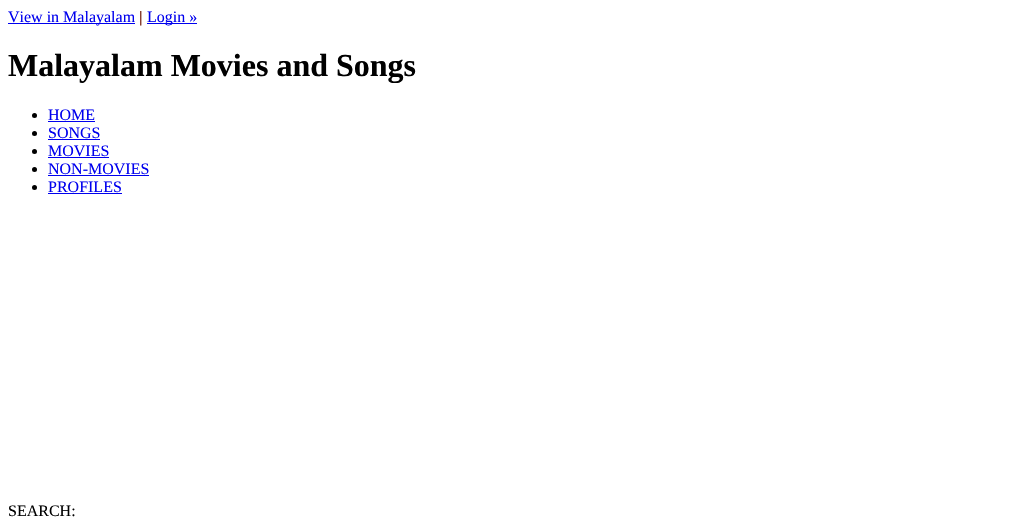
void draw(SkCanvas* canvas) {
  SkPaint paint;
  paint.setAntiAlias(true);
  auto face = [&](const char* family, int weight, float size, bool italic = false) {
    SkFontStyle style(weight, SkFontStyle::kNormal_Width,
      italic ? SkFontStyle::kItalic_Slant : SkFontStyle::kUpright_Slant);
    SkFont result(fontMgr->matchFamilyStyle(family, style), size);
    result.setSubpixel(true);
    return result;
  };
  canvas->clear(0xffffffff);
  paint.setColor(0xff0000ee);
  canvas->drawRect(SkRect::MakeXYWH(8, 23, 127, 1), paint);
  canvas->drawRect(SkRect::MakeXYWH(147, 23, 50, 1), paint);
  paint.setColor(0xff000000);
  canvas->drawCircle(34.5f, 115.5f, 2.5f, paint);
  paint.setColor(0xff0000ee);
  canvas->drawRect(SkRect::MakeXYWH(48, 121, 47, 1), paint);
  paint.setColor(0xff000000);
  canvas->drawCircle(34.5f, 133.5f, 2.5f, paint);
  paint.setColor(0xff0000ee);
  canvas->drawRect(SkRect::MakeXYWH(48, 139, 52, 1), paint);
  paint.setColor(0xff000000);
  canvas->drawCircle(34.5f, 151.5f, 2.5f, paint);
  paint.setColor(0xff0000ee);
  canvas->drawRect(SkRect::MakeXYWH(48, 157, 61, 1), paint);
  paint.setColor(0xff000000);
  canvas->drawCircle(34.5f, 169.5f, 2.5f, paint);
  paint.setColor(0xff0000ee);
  canvas->drawRect(SkRect::MakeXYWH(48, 175, 101, 1), paint);
  paint.setColor(0xff000000);
  canvas->drawCircle(34.5f, 187.5f, 2.5f, paint);
  paint.setColor(0xff0000ee);
  canvas->drawRect(SkRect::MakeXYWH(48, 193, 74, 1), paint);
  auto f0 = face("Liberation Serif", 400, 16);
  canvas->drawString("View in Malayalam", 8, 22, f0, paint);
  auto f1 = face("Liberation Serif", 700, 16);
  paint.setColor(0xff762311);
  canvas->drawString("|", 139, 22, f1, paint);
  paint.setColor(0xff0000ee);
  canvas->drawString("Login »", 147, 22, f0, paint);
  auto f2 = face("Liberation Serif", 700, 32);
  paint.setColor(0xff000000);
  canvas->drawString("Malayalam Movies and Songs", 8, 76, f2, paint);
  paint.setColor(0xff0000ee);
  {
    const struct { const char* s; float x, y; } items[] = {
      {"HOME", 48, 120},
      {"SONGS", 48, 138},
      {"MOVIES", 48, 156},
      {"NON-MOVIES", 48, 174},
      {"PROFILES", 48, 192},
    };
    for (auto [s, x, y] : items) {
      canvas->drawString(s, x, y, f0, paint);
    }
  }
  paint.setColor(0xff000000);
  canvas->drawString("SEARCH:", 8, 516, f0, paint);
}
